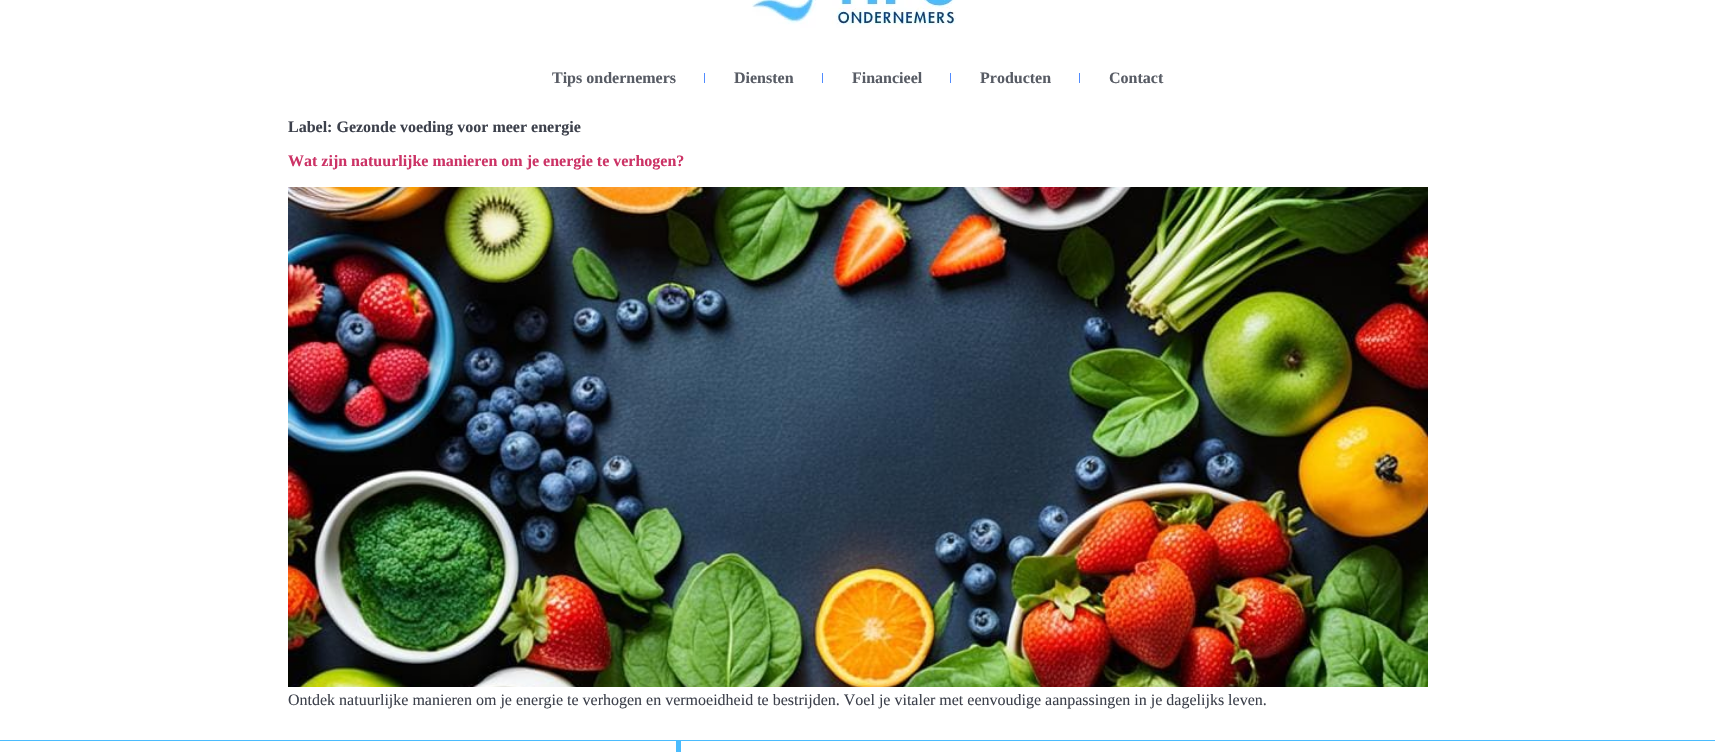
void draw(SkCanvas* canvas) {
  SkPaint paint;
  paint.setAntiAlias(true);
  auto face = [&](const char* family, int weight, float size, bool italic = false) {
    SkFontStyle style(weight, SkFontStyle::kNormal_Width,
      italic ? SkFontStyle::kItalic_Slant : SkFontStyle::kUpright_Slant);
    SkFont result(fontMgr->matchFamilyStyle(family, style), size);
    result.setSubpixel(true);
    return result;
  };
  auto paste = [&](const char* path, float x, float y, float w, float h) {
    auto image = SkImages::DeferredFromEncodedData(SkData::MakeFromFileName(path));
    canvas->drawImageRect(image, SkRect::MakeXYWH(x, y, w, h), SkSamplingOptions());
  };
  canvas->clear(0xffffffff);
  paste("img/1.png", 752, 0, 204, 28);
  {
    const struct { float x, y, w, h; SkColor color; } items[] = {
      {704, 73, 1, 10, 0xff508bff},
      {822, 73, 1, 10, 0xff508bff},
      {950, 73, 1, 10, 0xff508bff},
      {1079, 73, 1, 10, 0xff508bff},
    };
    for (auto [x, y, w, h, color] : items) {
      paint.setColor(color);
      canvas->drawRect(SkRect::MakeXYWH(x, y, w, h), paint);
    }
  }
  paste("img/2.png", 288, 187, 1140, 500);
  paint.setColor(0xff4bbcfe);
  canvas->drawRect(SkRect::MakeXYWH(0, 740, 1715, 1), paint);
  canvas->drawRect(SkRect::MakeXYWH(676, 741, 5, 11), paint);
  auto f0 = face("Liberation Serif", 700, 16);
  paint.setColor(0xff585c65);
  {
    const struct { const char* s; float x, y; } items[] = {
      {"Tips ondernemers", 552, 83},
      {"Diensten", 734, 83},
      {"Financieel", 852, 83},
      {"Producten", 980, 83},
      {"Contact", 1109, 83},
    };
    for (auto [s, x, y] : items) {
      canvas->drawString(s, x, y, f0, paint);
    }
  }
  paint.setColor(0xff3d414c);
  canvas->drawString("Label: Gezonde voeding voor meer energie", 288, 132, f0, paint);
  paint.setColor(0xffcc3366);
  canvas->drawString("Wat zijn natuurlijke manieren om je energie te verhogen?", 288, 166, f0, paint);
  auto f1 = face("Liberation Serif", 400, 16);
  paint.setColor(0xff3d414c);
  canvas->drawString("Ontdek natuurlijke manieren om je energie te verhogen en vermoeidheid te bestrijden. Voel je vitaler met eenvoudige aanpassingen in je dagelijks leven.", 288, 705, f1, paint);
}
